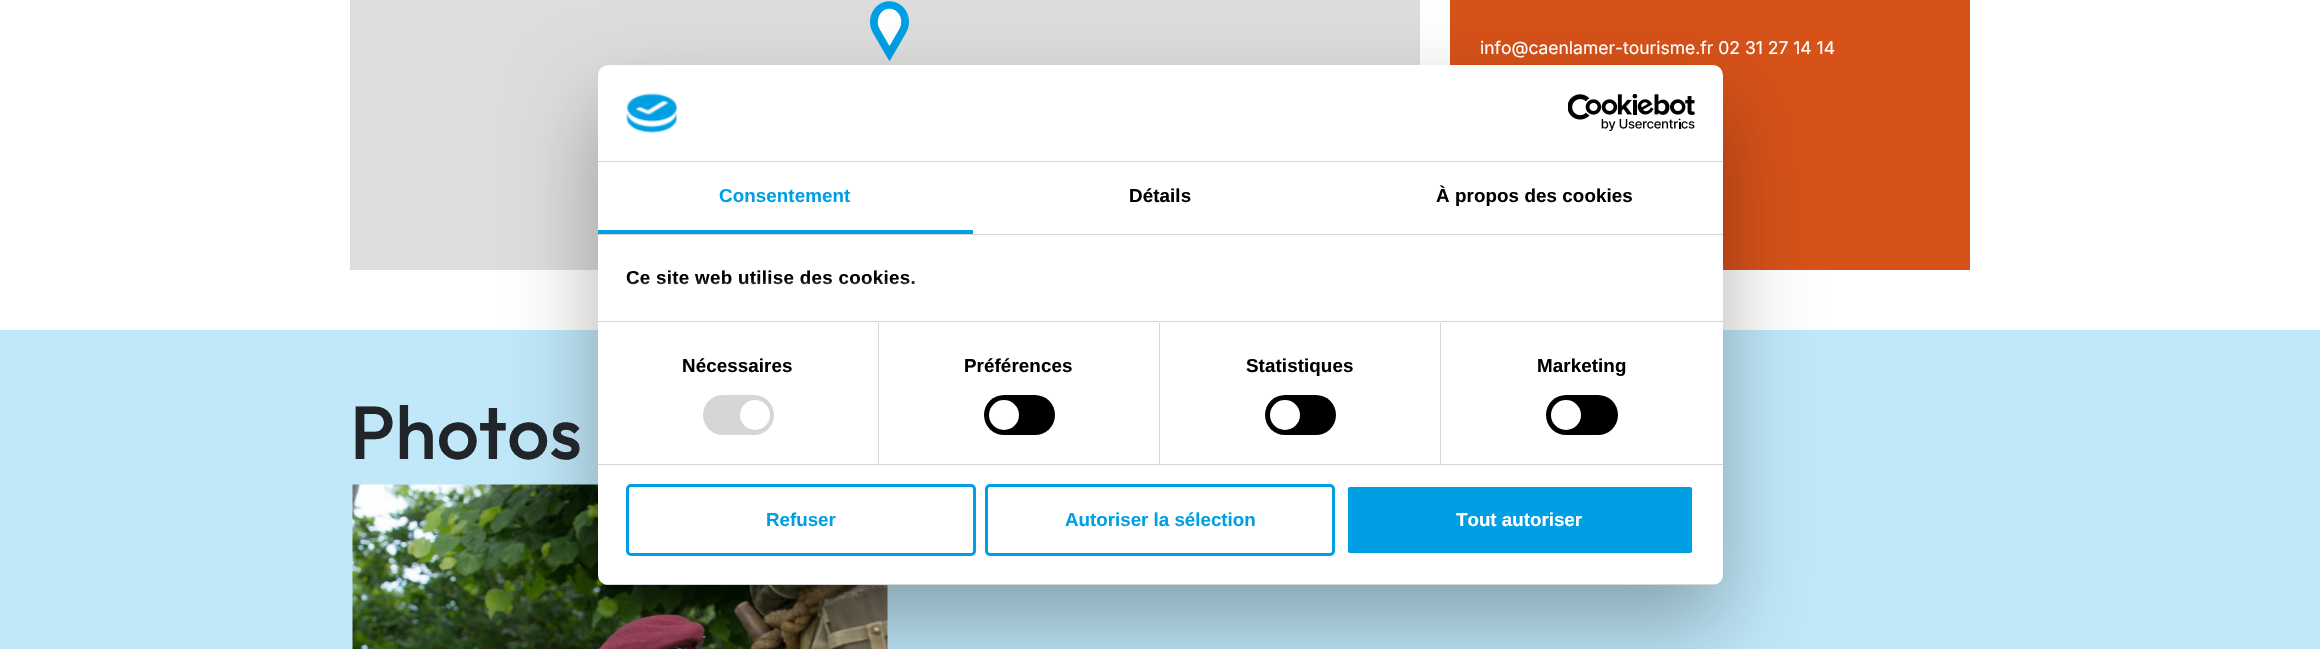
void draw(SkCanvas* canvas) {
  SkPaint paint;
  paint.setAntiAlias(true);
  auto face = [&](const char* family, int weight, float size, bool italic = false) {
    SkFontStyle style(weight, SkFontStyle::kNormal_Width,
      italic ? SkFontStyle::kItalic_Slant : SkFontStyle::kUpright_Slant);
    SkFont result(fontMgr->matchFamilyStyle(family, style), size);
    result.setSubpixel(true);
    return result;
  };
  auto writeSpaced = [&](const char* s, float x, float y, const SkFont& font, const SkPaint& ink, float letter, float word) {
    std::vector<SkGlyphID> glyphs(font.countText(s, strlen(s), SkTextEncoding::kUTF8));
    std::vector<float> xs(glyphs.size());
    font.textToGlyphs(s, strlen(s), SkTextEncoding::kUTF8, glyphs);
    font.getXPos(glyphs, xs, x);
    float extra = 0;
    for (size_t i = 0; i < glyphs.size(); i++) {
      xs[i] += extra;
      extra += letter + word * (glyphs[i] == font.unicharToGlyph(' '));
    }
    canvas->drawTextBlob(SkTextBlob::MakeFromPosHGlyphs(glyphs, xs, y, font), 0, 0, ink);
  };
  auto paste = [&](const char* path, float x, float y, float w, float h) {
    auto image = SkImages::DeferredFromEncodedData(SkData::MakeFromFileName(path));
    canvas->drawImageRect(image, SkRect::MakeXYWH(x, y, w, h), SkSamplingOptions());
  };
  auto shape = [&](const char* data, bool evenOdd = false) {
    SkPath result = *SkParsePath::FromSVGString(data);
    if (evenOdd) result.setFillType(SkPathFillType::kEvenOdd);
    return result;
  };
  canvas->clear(0xffffffff);
  paint.setColor(0xffdddddd);
  canvas->drawRect(SkRect::MakeXYWH(350, 0, 1070, 270), paint);
  paste("img/1.png", 870, 1, 39, 61);
  paint.setColor(0xffd65219);
  canvas->drawRect(SkRect::MakeXYWH(1450, 0, 520, 270), paint);
  paint.setColor(0xffc0e8f9);
  canvas->drawRect(SkRect::MakeXYWH(0, 330, 2320, 319), paint);
  paste("img/2.png", 352, 484, 536, 165);
  paint.setColor(0x4d000000);
  paint.setMaskFilter(SkMaskFilter::MakeBlur(kNormal_SkBlurStyle, 42.5f));
  canvas->drawRoundRect(SkRect::MakeXYWH(598, 105, 1125, 520), 10, 10, paint);
  paint.setMaskFilter(nullptr);
  paint.setColor(0xffffffff);
  canvas->drawRoundRect(SkRect::MakeXYWH(598, 65, 1125, 520), 10, 10, paint);
  paint.setColor(0xffd6d6d6);
  canvas->drawRect(SkRect::MakeXYWH(598, 161, 1125, 1), paint);
  paste("img/3.png", 626, 93, 52, 41);
  paste("img/4.png", 1568, 94, 127, 37);
  {
    const struct { float x, y, w, h; SkColor color; } items[] = {
      {598, 234, 1125, 1, 0xffd6d6d6},
      {598, 230, 375, 4, 0xff009fe3},
      {598, 321, 1125, 1, 0xffd6d6d6},
      {598, 464, 1125, 1, 0xffd6d6d6},
      {878, 323, 1, 141, 0xffd6d6d6},
    };
    for (auto [x, y, w, h, color] : items) {
      paint.setColor(color);
      canvas->drawRect(SkRect::MakeXYWH(x, y, w, h), paint);
    }
  }
  canvas->drawRoundRect(SkRect::MakeXYWH(703, 395, 71, 40), 20, 20, paint);
  paint.setColor(0xffffffff);
  canvas->drawCircle(755, 415, 15, paint);
  paint.setColor(0xffd6d6d6);
  canvas->drawRect(SkRect::MakeXYWH(1159, 323, 1, 141), paint);
  paint.setColor(0xff000000);
  canvas->drawRoundRect(SkRect::MakeXYWH(984, 395, 71, 40), 20, 20, paint);
  paint.setColor(0xffffffff);
  canvas->drawCircle(1004, 415, 15, paint);
  paint.setColor(0xffd6d6d6);
  canvas->drawRect(SkRect::MakeXYWH(1440, 323, 1, 141), paint);
  paint.setColor(0xff000000);
  canvas->drawRoundRect(SkRect::MakeXYWH(1265, 395, 71, 40), 20, 20, paint);
  paint.setColor(0xffffffff);
  canvas->drawCircle(1285, 415, 15, paint);
  paint.setColor(0xff000000);
  canvas->drawRoundRect(SkRect::MakeXYWH(1546, 395, 72, 40), 20, 20, paint);
  paint.setColor(0xffffffff);
  canvas->drawCircle(1566, 415, 15, paint);
  canvas->save();
  canvas->clipPath(shape("M608 65H1713C1718.5 65 1723 69.5 1723 75V575C1723 580.5 1718.5 585 1713 585H608C602.5 585 598 580.5 598 575V75C598 69.5 602.5 65 608 65Z"), true);
  paint.setColor(0xffd6d6d6);
  canvas->drawRect(SkRect::MakeXYWH(598, 584, 1125, 1), paint);
  canvas->restore();
  paint.setStroke(true);
  paint.setStrokeWidth(3);
  paint.setColor(0xff009fe3);
  canvas->drawRoundRect(SkRect::MakeXYWH(627.5f, 485.5f, 347, 69), 3.5f, 3.5f, paint);
  canvas->drawRoundRect(SkRect::MakeXYWH(986.5f, 485.5f, 347, 69), 3.5f, 3.5f, paint);
  paint.setStroke(false);
  canvas->drawRoundRect(SkRect::MakeXYWH(1346.5f, 485.5f, 347, 69), 3.5f, 3.5f, paint);
  paint.setStroke(true);
  paint.setColor(0xffffffff);
  canvas->drawRoundRect(SkRect::MakeXYWH(1346.5f, 485.5f, 347, 69), 3.5f, 3.5f, paint);
  auto f0 = face("Inter", 400, 17.5f);
  paint.setStroke(false);
  canvas->drawString("info@caenlamer-tourisme.fr 02 31 27 14 14", 1480, 54, f0, paint);
  auto f1 = face("Outfit", 500, 75);
  paint.setColor(0xff212529);
  canvas->drawString("Photos", 350, 459, f1, paint);
  auto f2 = face("Liberation Sans", 700, 18.75f);
  paint.setColor(0xff009fe3);
  writeSpaced("Consentement", 719, 202, f2, paint, 0.1f, 0);
  paint.setColor(0xff000000);
  writeSpaced("Détails", 1129, 202, f2, paint, 0.1f, 0);
  writeSpaced("À propos des cookies", 1436, 202, f2, paint, 0.1f, 0);
  writeSpaced("Ce site web utilise des cookies.", 626, 284, f2, paint, 0.3f, 0);
  {
    const SkColor colors[] = {0xffffffff, 0xccffffff, 0x00ffffff};
    const float stops[] = {0, 0.5f, 1};
    const SkPoint ends[] = {{1148, 321}, {1148, 279}};
    paint.setShader(SkGradientShader::MakeLinear(ends, colors, stops, 3, SkTileMode::kClamp));
    paint.setAlpha(255);
  }
  canvas->drawRect(SkRect::MakeXYWH(627, 280, 288, 5), paint);
  paint.setShader(nullptr);
  paint.setColor(0xff000000);
  {
    const struct { const char* s; float x, y; } items[] = {
      {"Nécessaires", 682, 372},
      {"Préférences", 964, 372},
      {"Statistiques", 1246, 372},
      {"Marketing", 1537, 372},
    };
    for (auto [s, x, y] : items) {
      writeSpaced(s, x, y, f2, paint, 0.1f, 0);
    }
  }
  paint.setColor(0xff009fe3);
  canvas->drawString("Refuser", 766, 526, f2, paint);
  canvas->drawString("Autoriser la sélection", 1065, 526, f2, paint);
  paint.setColor(0xffffffff);
  canvas->drawString("Tout autoriser", 1456, 526, f2, paint);
}
